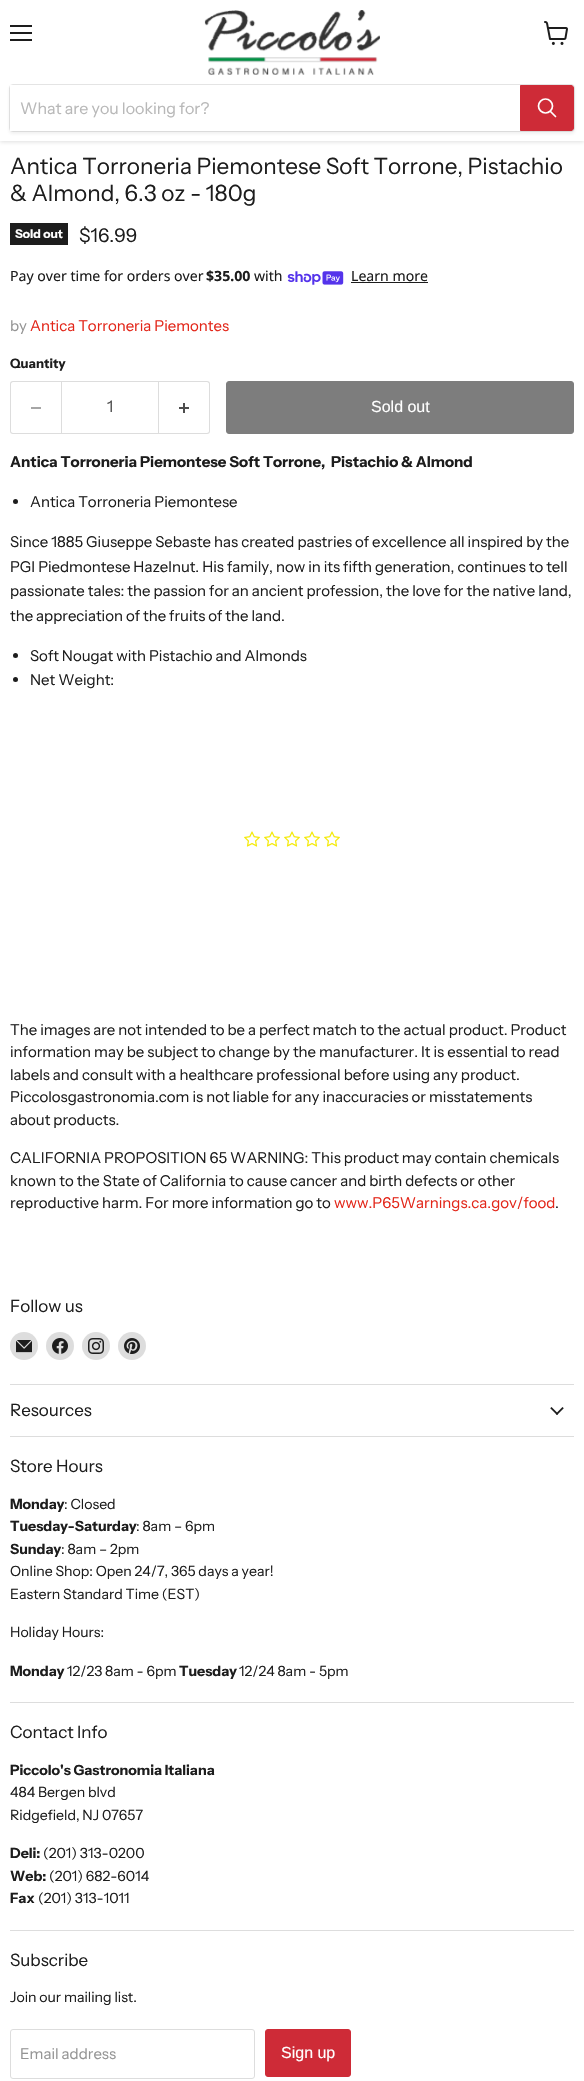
void draw(SkCanvas* canvas) {
  SkPaint paint;
  paint.setAntiAlias(true);
  auto face = [&](const char* family, int weight, float size, bool italic = false) {
    SkFontStyle style(weight, SkFontStyle::kNormal_Width,
      italic ? SkFontStyle::kItalic_Slant : SkFontStyle::kUpright_Slant);
    SkFont result(fontMgr->matchFamilyStyle(family, style), size);
    result.setSubpixel(true);
    return result;
  };
  auto paste = [&](const char* path, float x, float y, float w, float h) {
    auto image = SkImages::DeferredFromEncodedData(SkData::MakeFromFileName(path));
    canvas->drawImageRect(image, SkRect::MakeXYWH(x, y, w, h), SkSamplingOptions());
  };
  auto shape = [&](const char* data, bool evenOdd = false) {
    SkPath result = *SkParsePath::FromSVGString(data);
    if (evenOdd) result.setFillType(SkPathFillType::kEvenOdd);
    return result;
  };
  canvas->clear(0xffffffff);
  paint.setColor(0x40808080);
  paint.setMaskFilter(SkMaskFilter::MakeBlur(kNormal_SkBlurStyle, 2));
  canvas->drawRect(SkRect::MakeXYWH(0, 1, 584, 141), paint);
  paint.setMaskFilter(nullptr);
  {
    const struct { float x, y, w, h; SkColor color; } items[] = {
      {0, 0, 584, 141, 0xffffffff},
      {10, 25, 22, 2, 0xff1d1d1d},
      {10, 32, 22, 2, 0xff1d1d1d},
      {10, 39, 22, 2, 0xff1d1d1d},
    };
    for (auto [x, y, w, h, color] : items) {
      paint.setColor(color);
      canvas->drawRect(SkRect::MakeXYWH(x, y, w, h), paint);
    }
  }
  paste("img/1.png", 544, 21, 24, 24);
  paste("img/2.png", 204, 10, 176, 65);
  paint.setColor(0x1c808080);
  paint.setMaskFilter(SkMaskFilter::MakeBlur(kNormal_SkBlurStyle, 1.5f));
  canvas->drawRoundRect(SkRect::MakeXYWH(9, 86, 566, 48), 4, 4, paint);
  paint.setMaskFilter(nullptr);
  paint.setStroke(true);
  paint.setStrokeWidth(1);
  paint.setColor(0x33808080);
  canvas->drawRoundRect(SkRect::MakeXYWH(9.5f, 84.5f, 565, 47), 3.5f, 3.5f, paint);
  paint.setStroke(false);
  paint.setColor(0xffffffff);
  canvas->drawRect(SkRect::MakeXYWH(10, 85, 510, 46), paint);
  paint.setColor(0xffce2b37);
  canvas->drawPath(shape("M520.5 85.5H571C572.5 85.5 573.5 86.5 573.5 88V128C573.5 129.5 572.5 130.5 571 130.5H520.5Z"), paint);
  paint.setStroke(true);
  canvas->drawPath(shape("M520.5 85.5H571C572.5 85.5 573.5 86.5 573.5 88V128C573.5 129.5 572.5 130.5 571 130.5H520.5Z"), paint);
  paint.setStrokeWidth(1.7f);
  paint.setStrokeCap(SkPaint::kRound_Cap);
  paint.setColor(0xffffffff);
  canvas->drawPath(shape("M555.5 116.5L550.5 111.5"), paint);
  paint.setStrokeCap(SkPaint::kButt_Cap);
  canvas->drawCircle(545.5f, 106, 7, paint);
  paint.setStroke(false);
  paint.setColor(0xff1d1d1d);
  canvas->drawRect(SkRect::MakeXYWH(10, 223, 58, 22), paint);
  paste("img/3.png", 287, 271, 57, 14);
  canvas->drawRect(SkRect::MakeXYWH(351, 282, 77, 1), paint);
  paint.setColor(0xffdddddd);
  canvas->drawPath(shape("M13 381H61V434H13C11 434 10 433 10 431V384C10 382 11 381 13 381ZM13 382H61V433H13C12 433 11 432 11 431V384C11 383 12 382 13 382Z", true), paint);
  paint.setColor(0xffa6a6a6);
  canvas->drawRect(SkRect::MakeXYWH(31, 407, 10, 2), paint);
  paint.setStroke(true);
  paint.setStrokeWidth(1);
  paint.setColor(0xffdddddd);
  canvas->drawRect(SkRect::MakeXYWH(61.5f, 381.5f, 97, 52), paint);
  paint.setStroke(false);
  canvas->drawPath(shape("M159 381H207C209 381 210 382 210 384V431C210 433 209 434 207 434H159ZM159 382H207C208 382 209 383 209 384V431C209 432 208 433 207 433H159Z", true), paint);
  paste("img/4.png", 179, 403, 10, 10);
  paint.setColor(0xff7d7d7d);
  canvas->drawRoundRect(SkRect::MakeXYWH(226.5f, 381.5f, 347, 52), 2.5f, 2.5f, paint);
  paint.setStroke(true);
  canvas->drawRoundRect(SkRect::MakeXYWH(226.5f, 381.5f, 347, 52), 2.5f, 2.5f, paint);
  paint.setStroke(false);
  paint.setColor(0xff1d1d1d);
  canvas->drawCircle(15.5f, 501.5f, 2.5f, paint);
  canvas->drawCircle(15.5f, 655.5f, 2.5f, paint);
  canvas->drawCircle(15.5f, 679.5f, 2.5f, paint);
  paste("img/5.png", 244, 831, 16, 16);
  paste("img/5.png", 264, 831, 16, 16);
  paste("img/5.png", 284, 831, 16, 16);
  paste("img/5.png", 304, 831, 16, 16);
  paste("img/5.png", 324, 831, 16, 16);
  paint.setColor(0xffdddddd);
  canvas->drawRect(SkRect::MakeXYWH(10, 1384, 564, 1), paint);
  canvas->drawCircle(24, 1346, 14, paint);
  paste("img/6.png", 16, 1340, 16, 13);
  canvas->drawCircle(60, 1346, 14, paint);
  paste("img/7.png", 52, 1338, 16, 16);
  canvas->drawCircle(96, 1346, 14, paint);
  paste("img/8.png", 88, 1338, 16, 16);
  canvas->drawCircle(132, 1346, 14, paint);
  paste("img/9.png", 124, 1338, 16, 16);
  canvas->drawRect(SkRect::MakeXYWH(10, 1436, 564, 1), paint);
  paste("img/10.png", 550, 1407, 14, 8);
  canvas->drawRect(SkRect::MakeXYWH(10, 1702, 564, 1), paint);
  canvas->drawRect(SkRect::MakeXYWH(10, 1930, 564, 1), paint);
  paint.setStroke(true);
  canvas->drawRoundRect(SkRect::MakeXYWH(10.5f, 2029.5f, 244, 49), 2.5f, 2.5f, paint);
  paint.setStroke(false);
  paint.setColor(0xffce2b37);
  canvas->drawRoundRect(SkRect::MakeXYWH(265.5f, 2029.5f, 85, 47), 2.5f, 2.5f, paint);
  paint.setStroke(true);
  canvas->drawRoundRect(SkRect::MakeXYWH(265.5f, 2029.5f, 85, 47), 2.5f, 2.5f, paint);
  auto f0 = face("Instrument Sans", 400, 16);
  paint.setStroke(false);
  paint.setColor(0xffb8b8b8);
  canvas->drawString("What are you looking for?", 20, 114, f0, paint);
  auto f1 = face("Instrument Sans", 400, 22.5f);
  paint.setColor(0xff1d1d1d);
  canvas->drawString("Antica Torroneria Piemontese Soft Torrone, Pistachio", 10, 174, f1, paint);
  canvas->drawString("& Almond, 6.3 oz - 180g", 10, 201, f1, paint);
  auto f2 = face("Instrument Sans", 700, 12);
  paint.setColor(0xffffffff);
  canvas->drawString("Sold out", 15, 238, f2, paint);
  auto f3 = face("Instrument Sans", 400, 19);
  paint.setColor(0xff1d1d1d);
  canvas->drawString("$16.99", 79, 242, f3, paint);
  auto f4 = face("Noto Sans", 400, 14.1f);
  canvas->drawString("Pay over time for orders over", 10, 281, f4, paint);
  auto f5 = face("Noto Sans", 700, 14.1f);
  canvas->drawString("$35.00", 206, 281, f5, paint);
  canvas->drawString("with", 254, 281, f4, paint);
  canvas->drawString("Learn more", 351, 281, f4, paint);
  auto f6 = face("Instrument Sans", 400, 15);
  paint.setColor(0xff949494);
  canvas->drawString("by", 10, 331, f6, paint);
  paint.setColor(0xffe32619);
  canvas->drawString("Antica Torroneria Piemontes", 30, 331, f6, paint);
  auto f7 = face("Instrument Sans", 700, 13);
  paint.setColor(0xff1d1d1d);
  canvas->drawString("Quantity", 10, 368, f7, paint);
  paint.setColor(0xff4d4d4d);
  canvas->drawString("1", 107, 412, f0, paint);
  auto f8 = face("Liberation Sans", 400, 16);
  paint.setColor(0xffffffff);
  canvas->drawString("Sold out", 371, 412, f8, paint);
  auto f9 = face("Instrument Sans", 700, 15);
  paint.setColor(0xff1d1d1d);
  canvas->drawString("Antica Torroneria Piemontese Soft Torrone,  Pistachio & Almond", 10, 467, f9, paint);
  {
    const struct { const char* s; float x, y; } items[] = {
      {"Antica Torroneria Piemontese", 30, 507},
      {"Since 1885 Giuseppe Sebaste has created pastries of excellence all inspired by the", 10, 547},
      {"PGI Piedmontese Hazelnut. His family, now in its fifth generation, continues to tell", 10, 572},
      {"passionate tales: the passion for an ancient profession, the love for the native land,", 10, 596},
      {"the appreciation of the fruits of the land.", 10, 621},
      {"Soft Nougat with Pistachio and Almonds", 30, 661},
      {"Net Weight:", 30, 685},
      {"The images are not intended to be a perfect match to the actual product. Product", 10, 1035},
      {"information may be subject to change by the manufacturer. It is essential to read", 10, 1057},
      {"labels and consult with a healthcare professional before using any product.", 10, 1080},
      {"Piccolosgastronomia.com is not liable for any inaccuracies or misstatements", 10, 1102},
      {"about products.", 10, 1125},
      {"CALIFORNIA PROPOSITION 65 WARNING: This product may contain chemicals", 10, 1163},
      {"known to the State of California to cause cancer and birth defects or other", 10, 1186},
      {"reproductive harm. For more information go to", 10, 1208},
    };
    for (auto [s, x, y] : items) {
      canvas->drawString(s, x, y, f6, paint);
    }
  }
  paint.setColor(0xffe32619);
  canvas->drawString("www.P65Warnings.ca.gov/food", 334, 1208, f6, paint);
  paint.setColor(0xff1d1d1d);
  canvas->drawString(".", 555, 1208, f6, paint);
  auto f10 = face("Instrument Sans", 400, 17);
  {
    const struct { const char* s; float x, y; } items[] = {
      {"Follow us", 10, 1312},
      {"Resources", 10, 1416},
      {"Store Hours", 10, 1472},
    };
    for (auto [s, x, y] : items) {
      canvas->drawString(s, x, y, f10, paint);
    }
  }
  auto f11 = face("Instrument Sans", 700, 14.1f);
  canvas->drawString("Monday", 10, 1509, f11, paint);
  auto f12 = face("Instrument Sans", 400, 14.1f);
  canvas->drawString(": Closed", 64, 1509, f12, paint);
  canvas->drawString("Tuesday-Saturday", 10, 1531, f11, paint);
  canvas->drawString(": 8am – 6pm", 136, 1531, f12, paint);
  canvas->drawString("Sunday", 10, 1554, f11, paint);
  {
    const struct { const char* s; float x, y; } items[] = {
      {": 8am – 2pm", 61, 1554},
      {"Online Shop: Open 24/7, 365 days a year!", 10, 1576},
      {"Eastern Standard Time (EST)", 10, 1599},
      {"Holiday Hours:", 10, 1637},
    };
    for (auto [s, x, y] : items) {
      canvas->drawString(s, x, y, f12, paint);
    }
  }
  canvas->drawString("Monday", 10, 1676, f11, paint);
  canvas->drawString("12/23 8am - 6pm", 67, 1676, f12, paint);
  canvas->drawString("Tuesday", 179, 1676, f11, paint);
  canvas->drawString("12/24 8am - 5pm", 239, 1676, f12, paint);
  canvas->drawString("Contact Info", 10, 1738, f10, paint);
  canvas->drawString("Piccolo's Gastronomia Italiana", 10, 1775, f11, paint);
  canvas->drawString("484 Bergen blvd", 10, 1797, f12, paint);
  canvas->drawString("Ridgefield, NJ 07657", 10, 1820, f12, paint);
  canvas->drawString("Deli:", 10, 1858, f11, paint);
  canvas->drawString("(201) 313-0200", 43, 1858, f12, paint);
  canvas->drawString("Web:", 10, 1881, f11, paint);
  canvas->drawString("(201) 682-6014", 49, 1881, f12, paint);
  canvas->drawString("Fax", 10, 1903, f11, paint);
  canvas->drawString("(201) 313-1011", 38, 1903, f12, paint);
  canvas->drawString("Subscribe", 10, 1966, f10, paint);
  canvas->drawString("Join our mailing list.", 10, 2002, f12, paint);
  paint.setColor(0xff949494);
  canvas->drawString("Email address", 20, 2059, f6, paint);
  paint.setColor(0xffffffff);
  canvas->drawString("Sign up", 281, 2058, f8, paint);
}
